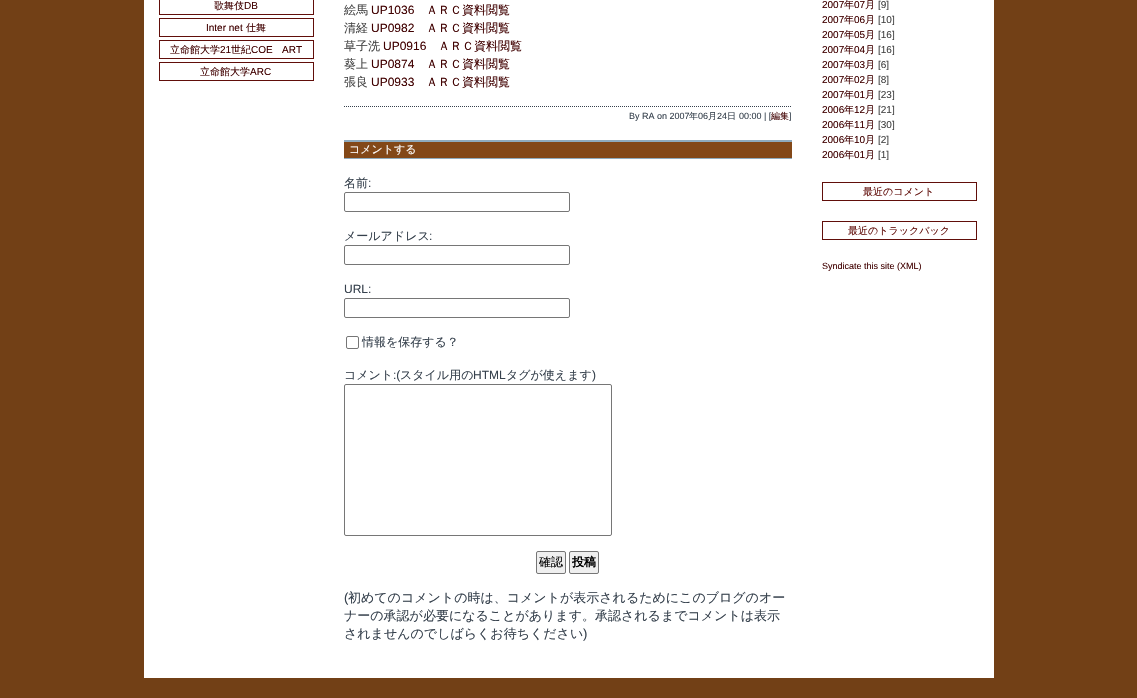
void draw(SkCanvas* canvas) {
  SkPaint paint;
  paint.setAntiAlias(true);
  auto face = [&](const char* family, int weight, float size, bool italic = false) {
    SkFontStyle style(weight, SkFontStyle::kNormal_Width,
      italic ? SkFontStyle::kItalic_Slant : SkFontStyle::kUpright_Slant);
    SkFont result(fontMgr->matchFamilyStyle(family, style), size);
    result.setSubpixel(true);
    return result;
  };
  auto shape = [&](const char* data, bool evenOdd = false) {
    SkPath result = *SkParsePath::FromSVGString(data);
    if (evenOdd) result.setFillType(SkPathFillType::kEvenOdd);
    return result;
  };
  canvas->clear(0xff724016);
  paint.setColor(0xffffffff);
  canvas->drawRect(SkRect::MakeXYWH(144, 0, 850, 678), paint);
  paint.setStroke(true);
  paint.setStrokeWidth(1);
  paint.setColor(0xff610e0a);
  canvas->drawRect(SkRect::MakeXYWH(159.5f, -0.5f, 154, 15), paint);
  canvas->drawRect(SkRect::MakeXYWH(159.5f, 18.5f, 154, 18), paint);
  canvas->drawRect(SkRect::MakeXYWH(159.5f, 40.5f, 154, 18), paint);
  canvas->drawRect(SkRect::MakeXYWH(159.5f, 62.5f, 154, 18), paint);
  paint.setColor(0xff36414d);
  paint.setPathEffect(SkDashPathEffect::Make({{1, 1}}, 0));
  canvas->drawPath(shape("M344 106.5H792"), paint);
  paint.setPathEffect(nullptr);
  paint.setStroke(false);
  paint.setColor(0xff8fabbe);
  canvas->drawRect(SkRect::MakeXYWH(344, 140, 448, 19), paint);
  paint.setColor(0xff834818);
  canvas->drawRect(SkRect::MakeXYWH(344, 142, 448, 16), paint);
  paint.setStroke(true);
  paint.setColor(0xff767676);
  canvas->drawRoundRect(SkRect::MakeXYWH(344.5f, 192.5f, 225, 19), 1.5f, 1.5f, paint);
  canvas->drawRoundRect(SkRect::MakeXYWH(344.5f, 245.5f, 225, 19), 1.5f, 1.5f, paint);
  canvas->drawRoundRect(SkRect::MakeXYWH(344.5f, 298.5f, 225, 19), 1.5f, 1.5f, paint);
  canvas->drawRoundRect(SkRect::MakeXYWH(346.5f, 336.5f, 12, 12), 1.5f, 1.5f, paint);
  canvas->drawRoundRect(SkRect::MakeXYWH(344.5f, 384.5f, 267, 151), 1.5f, 1.5f, paint);
  paint.setStroke(false);
  paint.setColor(0xffefefef);
  canvas->drawRoundRect(SkRect::MakeXYWH(536.5f, 551.5f, 29, 22), 1.5f, 1.5f, paint);
  paint.setStroke(true);
  paint.setColor(0xff767676);
  canvas->drawRoundRect(SkRect::MakeXYWH(536.5f, 551.5f, 29, 22), 1.5f, 1.5f, paint);
  paint.setStroke(false);
  paint.setColor(0xffefefef);
  canvas->drawRoundRect(SkRect::MakeXYWH(569.5f, 551.5f, 29, 22), 1.5f, 1.5f, paint);
  paint.setStroke(true);
  paint.setColor(0xff767676);
  canvas->drawRoundRect(SkRect::MakeXYWH(569.5f, 551.5f, 29, 22), 1.5f, 1.5f, paint);
  paint.setColor(0xff610e0a);
  canvas->drawRect(SkRect::MakeXYWH(822.5f, 182.5f, 154, 18), paint);
  canvas->drawRect(SkRect::MakeXYWH(822.5f, 221.5f, 154, 18), paint);
  auto f0 = face("WenQuanYi Zen Hei", 500, 10);
  paint.setStroke(false);
  paint.setColor(0xff400000);
  canvas->drawString("歌舞伎", 214, 9, f0, paint);
  auto f1 = face("Liberation Sans", 400, 10);
  canvas->drawString("DB", 244, 9, f1, paint);
  canvas->drawString("Inter net", 206, 31, f1, paint);
  canvas->drawString("仕舞", 246, 31, f0, paint);
  canvas->drawString("立命館大学", 170, 53, f0, paint);
  canvas->drawString("21", 220, 53, f1, paint);
  canvas->drawString("世紀", 231, 53, f0, paint);
  canvas->drawString("COE", 251, 53, f1, paint);
  canvas->drawString("ART", 282, 53, f1, paint);
  canvas->drawString("立命館大学", 200, 75, f0, paint);
  canvas->drawString("ARC", 250, 75, f1, paint);
  auto f2 = face("WenQuanYi Zen Hei", 500, 12);
  paint.setColor(0xff444444);
  canvas->drawString("絵馬", 344, 14, f2, paint);
  auto f3 = face("Liberation Sans", 400, 12);
  paint.setColor(0xff400000);
  canvas->drawString("UP1036", 371, 14, f3, paint);
  canvas->drawString("ＡＲＣ資料閲覧", 426, 14, f2, paint);
  paint.setColor(0xff444444);
  canvas->drawString("清経", 344, 32, f2, paint);
  paint.setColor(0xff400000);
  canvas->drawString("UP0982", 371, 32, f3, paint);
  canvas->drawString("ＡＲＣ資料閲覧", 426, 32, f2, paint);
  paint.setColor(0xff444444);
  canvas->drawString("草子洗", 344, 50, f2, paint);
  paint.setColor(0xff400000);
  canvas->drawString("UP0916", 383, 50, f3, paint);
  canvas->drawString("ＡＲＣ資料閲覧", 438, 50, f2, paint);
  paint.setColor(0xff444444);
  canvas->drawString("葵上", 344, 68, f2, paint);
  paint.setColor(0xff400000);
  canvas->drawString("UP0874", 371, 68, f3, paint);
  canvas->drawString("ＡＲＣ資料閲覧", 426, 68, f2, paint);
  paint.setColor(0xff444444);
  canvas->drawString("張良", 344, 86, f2, paint);
  paint.setColor(0xff400000);
  canvas->drawString("UP0933", 371, 86, f3, paint);
  canvas->drawString("ＡＲＣ資料閲覧", 426, 86, f2, paint);
  auto f4 = face("Liberation Sans", 400, 9);
  paint.setColor(0xff36414d);
  canvas->drawString("By RA on 2007", 629, 119, f4, paint);
  auto f5 = face("WenQuanYi Zen Hei", 500, 9);
  canvas->drawString("年", 689, 119, f5, paint);
  canvas->drawString("06", 698, 119, f4, paint);
  canvas->drawString("月", 708, 119, f5, paint);
  canvas->drawString("24", 717, 119, f4, paint);
  canvas->drawString("日", 727, 119, f5, paint);
  canvas->drawString("00:00 | [", 739, 119, f4, paint);
  paint.setColor(0xff400000);
  canvas->drawString("編集", 771, 119, f5, paint);
  paint.setColor(0xff36414d);
  canvas->drawString("]", 789, 119, f4, paint);
  auto f6 = face("WenQuanYi Zen Hei", 500, 11);
  paint.setColor(0xffffffff);
  canvas->drawString("コメントする", 349, 153, f6, paint);
  paint.setColor(0xff36414d);
  canvas->drawString("名前", 344, 187, f2, paint);
  canvas->drawString(":", 368, 187, f3, paint);
  canvas->drawString("メールアドレス", 344, 240, f2, paint);
  canvas->drawString(":", 429, 240, f3, paint);
  canvas->drawString("URL:", 344, 293, f3, paint);
  canvas->drawString("情報を保存する？", 362, 346, f2, paint);
  canvas->drawString("コメント", 344, 379, f2, paint);
  canvas->drawString(":(", 393, 379, f3, paint);
  canvas->drawString("スタイル用の", 400, 379, f2, paint);
  canvas->drawString("HTML", 473, 379, f3, paint);
  canvas->drawString("タグが使えます", 506, 379, f2, paint);
  canvas->drawString(")", 592, 379, f3, paint);
  paint.setColor(0xff000000);
  canvas->drawString("確認", 539, 566, f2, paint);
  auto f7 = face("WenQuanYi Zen Hei", 700, 12);
  canvas->drawString("投稿", 572, 566, f7, paint);
  auto f8 = face("Liberation Sans", 400, 13);
  paint.setColor(0xff36414d);
  canvas->drawString("(", 344, 602, f8, paint);
  auto f9 = face("WenQuanYi Zen Hei", 500, 13);
  {
    const struct { const char* s; float x, y; } items[] = {
      {"初めてのコメントの時は、コメントが表示されるためにこのブログのオー", 348, 602},
      {"ナーの承認が必要になることがあります。承認されるまでコメントは表示", 344, 620},
      {"されませんのでしばらくお待ちください", 344, 638},
    };
    for (auto [s, x, y] : items) {
      canvas->drawString(s, x, y, f9, paint);
    }
  }
  canvas->drawString(")", 583, 638, f8, paint);
  paint.setColor(0xff400000);
  canvas->drawString("2007", 822, 8, f1, paint);
  canvas->drawString("年", 844, 8, f0, paint);
  canvas->drawString("07", 854, 8, f1, paint);
  canvas->drawString("月", 865, 8, f0, paint);
  paint.setColor(0xff444444);
  canvas->drawString("[9]", 878, 8, f1, paint);
  paint.setColor(0xff400000);
  canvas->drawString("2007", 822, 23, f1, paint);
  canvas->drawString("年", 844, 23, f0, paint);
  canvas->drawString("06", 854, 23, f1, paint);
  canvas->drawString("月", 865, 23, f0, paint);
  paint.setColor(0xff444444);
  canvas->drawString("[10]", 878, 23, f1, paint);
  paint.setColor(0xff400000);
  canvas->drawString("2007", 822, 38, f1, paint);
  canvas->drawString("年", 844, 38, f0, paint);
  canvas->drawString("05", 854, 38, f1, paint);
  canvas->drawString("月", 865, 38, f0, paint);
  paint.setColor(0xff444444);
  canvas->drawString("[16]", 878, 38, f1, paint);
  paint.setColor(0xff400000);
  canvas->drawString("2007", 822, 53, f1, paint);
  canvas->drawString("年", 844, 53, f0, paint);
  canvas->drawString("04", 854, 53, f1, paint);
  canvas->drawString("月", 865, 53, f0, paint);
  paint.setColor(0xff444444);
  canvas->drawString("[16]", 878, 53, f1, paint);
  paint.setColor(0xff400000);
  canvas->drawString("2007", 822, 68, f1, paint);
  canvas->drawString("年", 844, 68, f0, paint);
  canvas->drawString("03", 854, 68, f1, paint);
  canvas->drawString("月", 865, 68, f0, paint);
  paint.setColor(0xff444444);
  canvas->drawString("[6]", 878, 68, f1, paint);
  paint.setColor(0xff400000);
  canvas->drawString("2007", 822, 83, f1, paint);
  canvas->drawString("年", 844, 83, f0, paint);
  canvas->drawString("02", 854, 83, f1, paint);
  canvas->drawString("月", 865, 83, f0, paint);
  paint.setColor(0xff444444);
  canvas->drawString("[8]", 878, 83, f1, paint);
  paint.setColor(0xff400000);
  canvas->drawString("2007", 822, 98, f1, paint);
  canvas->drawString("年", 844, 98, f0, paint);
  canvas->drawString("01", 854, 98, f1, paint);
  canvas->drawString("月", 865, 98, f0, paint);
  paint.setColor(0xff444444);
  canvas->drawString("[23]", 878, 98, f1, paint);
  paint.setColor(0xff400000);
  canvas->drawString("2006", 822, 113, f1, paint);
  canvas->drawString("年", 844, 113, f0, paint);
  canvas->drawString("12", 854, 113, f1, paint);
  canvas->drawString("月", 865, 113, f0, paint);
  paint.setColor(0xff444444);
  canvas->drawString("[21]", 878, 113, f1, paint);
  paint.setColor(0xff400000);
  canvas->drawString("2006", 822, 128, f1, paint);
  canvas->drawString("年", 844, 128, f0, paint);
  canvas->drawString("11", 854, 128, f1, paint);
  canvas->drawString("月", 865, 128, f0, paint);
  paint.setColor(0xff444444);
  canvas->drawString("[30]", 878, 128, f1, paint);
  paint.setColor(0xff400000);
  canvas->drawString("2006", 822, 143, f1, paint);
  canvas->drawString("年", 844, 143, f0, paint);
  canvas->drawString("10", 854, 143, f1, paint);
  canvas->drawString("月", 865, 143, f0, paint);
  paint.setColor(0xff444444);
  canvas->drawString("[2]", 878, 143, f1, paint);
  paint.setColor(0xff400000);
  canvas->drawString("2006", 822, 158, f1, paint);
  canvas->drawString("年", 844, 158, f0, paint);
  canvas->drawString("01", 854, 158, f1, paint);
  canvas->drawString("月", 865, 158, f0, paint);
  paint.setColor(0xff444444);
  canvas->drawString("[1]", 878, 158, f1, paint);
  paint.setColor(0xff610e0a);
  canvas->drawString("最近のコメント", 863, 195, f0, paint);
  canvas->drawString("最近のトラックバック", 848, 234, f0, paint);
  paint.setColor(0xff400000);
  canvas->drawString("Syndicate this site (XML)", 822, 269, f4, paint);
}
